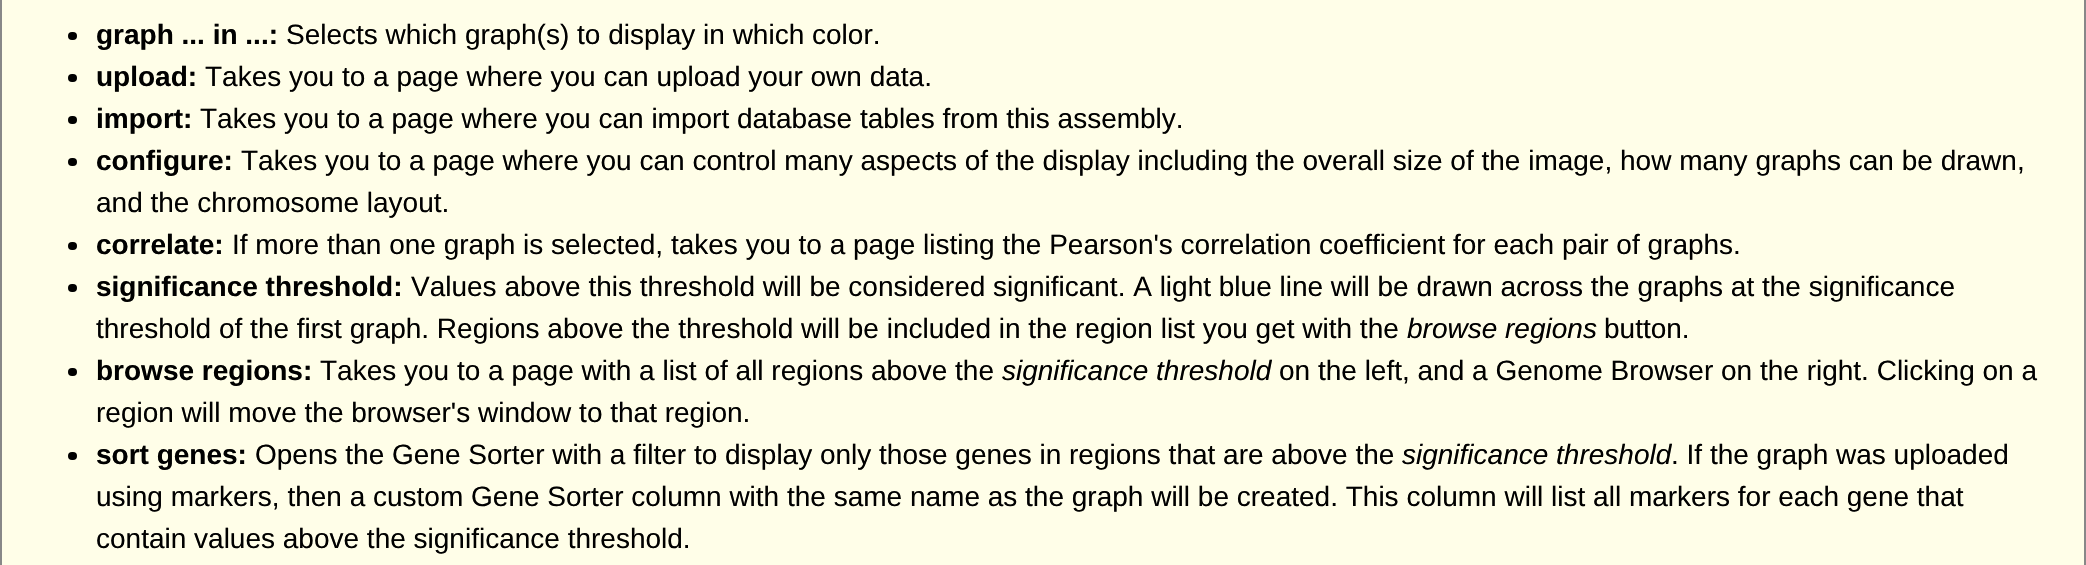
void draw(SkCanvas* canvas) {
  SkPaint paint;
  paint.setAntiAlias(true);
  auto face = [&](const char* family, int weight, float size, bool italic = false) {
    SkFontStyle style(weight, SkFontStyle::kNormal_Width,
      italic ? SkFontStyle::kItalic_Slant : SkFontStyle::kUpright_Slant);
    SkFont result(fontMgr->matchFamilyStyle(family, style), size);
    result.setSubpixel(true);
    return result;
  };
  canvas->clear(0xff888888);
  paint.setColor(0xfffffee8);
  canvas->drawRect(SkRect::MakeXYWH(2, 0, 2082, 565), paint);
  paint.setColor(0xff000000);
  canvas->drawRoundRect(SkRect::MakeXYWH(68, 32, 9, 8), 4, 4, paint);
  canvas->drawRoundRect(SkRect::MakeXYWH(68, 74, 9, 8), 4, 4, paint);
  canvas->drawRoundRect(SkRect::MakeXYWH(68, 116, 9, 8), 4, 4, paint);
  canvas->drawRoundRect(SkRect::MakeXYWH(68, 158, 9, 8), 4, 4, paint);
  canvas->drawRoundRect(SkRect::MakeXYWH(68, 242, 9, 8), 4, 4, paint);
  canvas->drawRoundRect(SkRect::MakeXYWH(68, 284, 9, 8), 4, 4, paint);
  canvas->drawRoundRect(SkRect::MakeXYWH(68, 368, 9, 8), 4, 4, paint);
  canvas->drawRoundRect(SkRect::MakeXYWH(68, 452, 9, 8), 4, 4, paint);
  auto f0 = face("Liberation Sans", 700, 28);
  canvas->drawString("graph ... in ...:", 96, 44, f0, paint);
  auto f1 = face("Liberation Sans", 400, 28);
  canvas->drawString("Selects which graph(s) to display in which color.", 286, 44, f1, paint);
  canvas->drawString("upload:", 96, 86, f0, paint);
  canvas->drawString("Takes you to a page where you can upload your own data.", 205, 86, f1, paint);
  canvas->drawString("import:", 96, 128, f0, paint);
  canvas->drawString("Takes you to a page where you can import database tables from this assembly.", 200, 128, f1, paint);
  canvas->drawString("configure:", 96, 170, f0, paint);
  canvas->drawString("Takes you to a page where you can control many aspects of the display including the overall size of the image, how many graphs can be drawn,", 241, 170, f1, paint);
  canvas->drawString("and the chromosome layout.", 96, 212, f1, paint);
  canvas->drawString("correlate:", 96, 254, f0, paint);
  canvas->drawString("If more than one graph is selected, takes you to a page listing the Pearson's correlation coefficient for each pair of graphs.", 232, 254, f1, paint);
  canvas->drawString("significance threshold:", 96, 296, f0, paint);
  canvas->drawString("Values above this threshold will be considered significant. A light blue line will be drawn across the graphs at the significance", 411, 296, f1, paint);
  canvas->drawString("threshold of the first graph. Regions above the threshold will be included in the region list you get with the", 96, 338, f1, paint);
  auto f2 = face("Liberation Sans", 400, 28, true);
  canvas->drawString("browse regions", 1407, 338, f2, paint);
  canvas->drawString("button.", 1604, 338, f1, paint);
  canvas->drawString("browse regions:", 96, 380, f0, paint);
  canvas->drawString("Takes you to a page with a list of all regions above the", 320, 380, f1, paint);
  canvas->drawString("significance threshold", 1002, 380, f2, paint);
  canvas->drawString("on the left, and a Genome Browser on the right. Clicking on a", 1279, 380, f1, paint);
  canvas->drawString("region will move the browser's window to that region.", 96, 422, f1, paint);
  canvas->drawString("sort genes:", 96, 464, f0, paint);
  canvas->drawString("Opens the Gene Sorter with a filter to display only those genes in regions that are above the", 255, 464, f1, paint);
  canvas->drawString("significance threshold", 1402, 464, f2, paint);
  {
    const struct { const char* s; float x, y; } items[] = {
      {". If the graph was uploaded", 1671, 464},
      {"using markers, then a custom Gene Sorter column with the same name as the graph will be created. This column will list all markers for each gene that", 96, 506},
      {"contain values above the significance threshold.", 96, 548},
    };
    for (auto [s, x, y] : items) {
      canvas->drawString(s, x, y, f1, paint);
    }
  }
}
